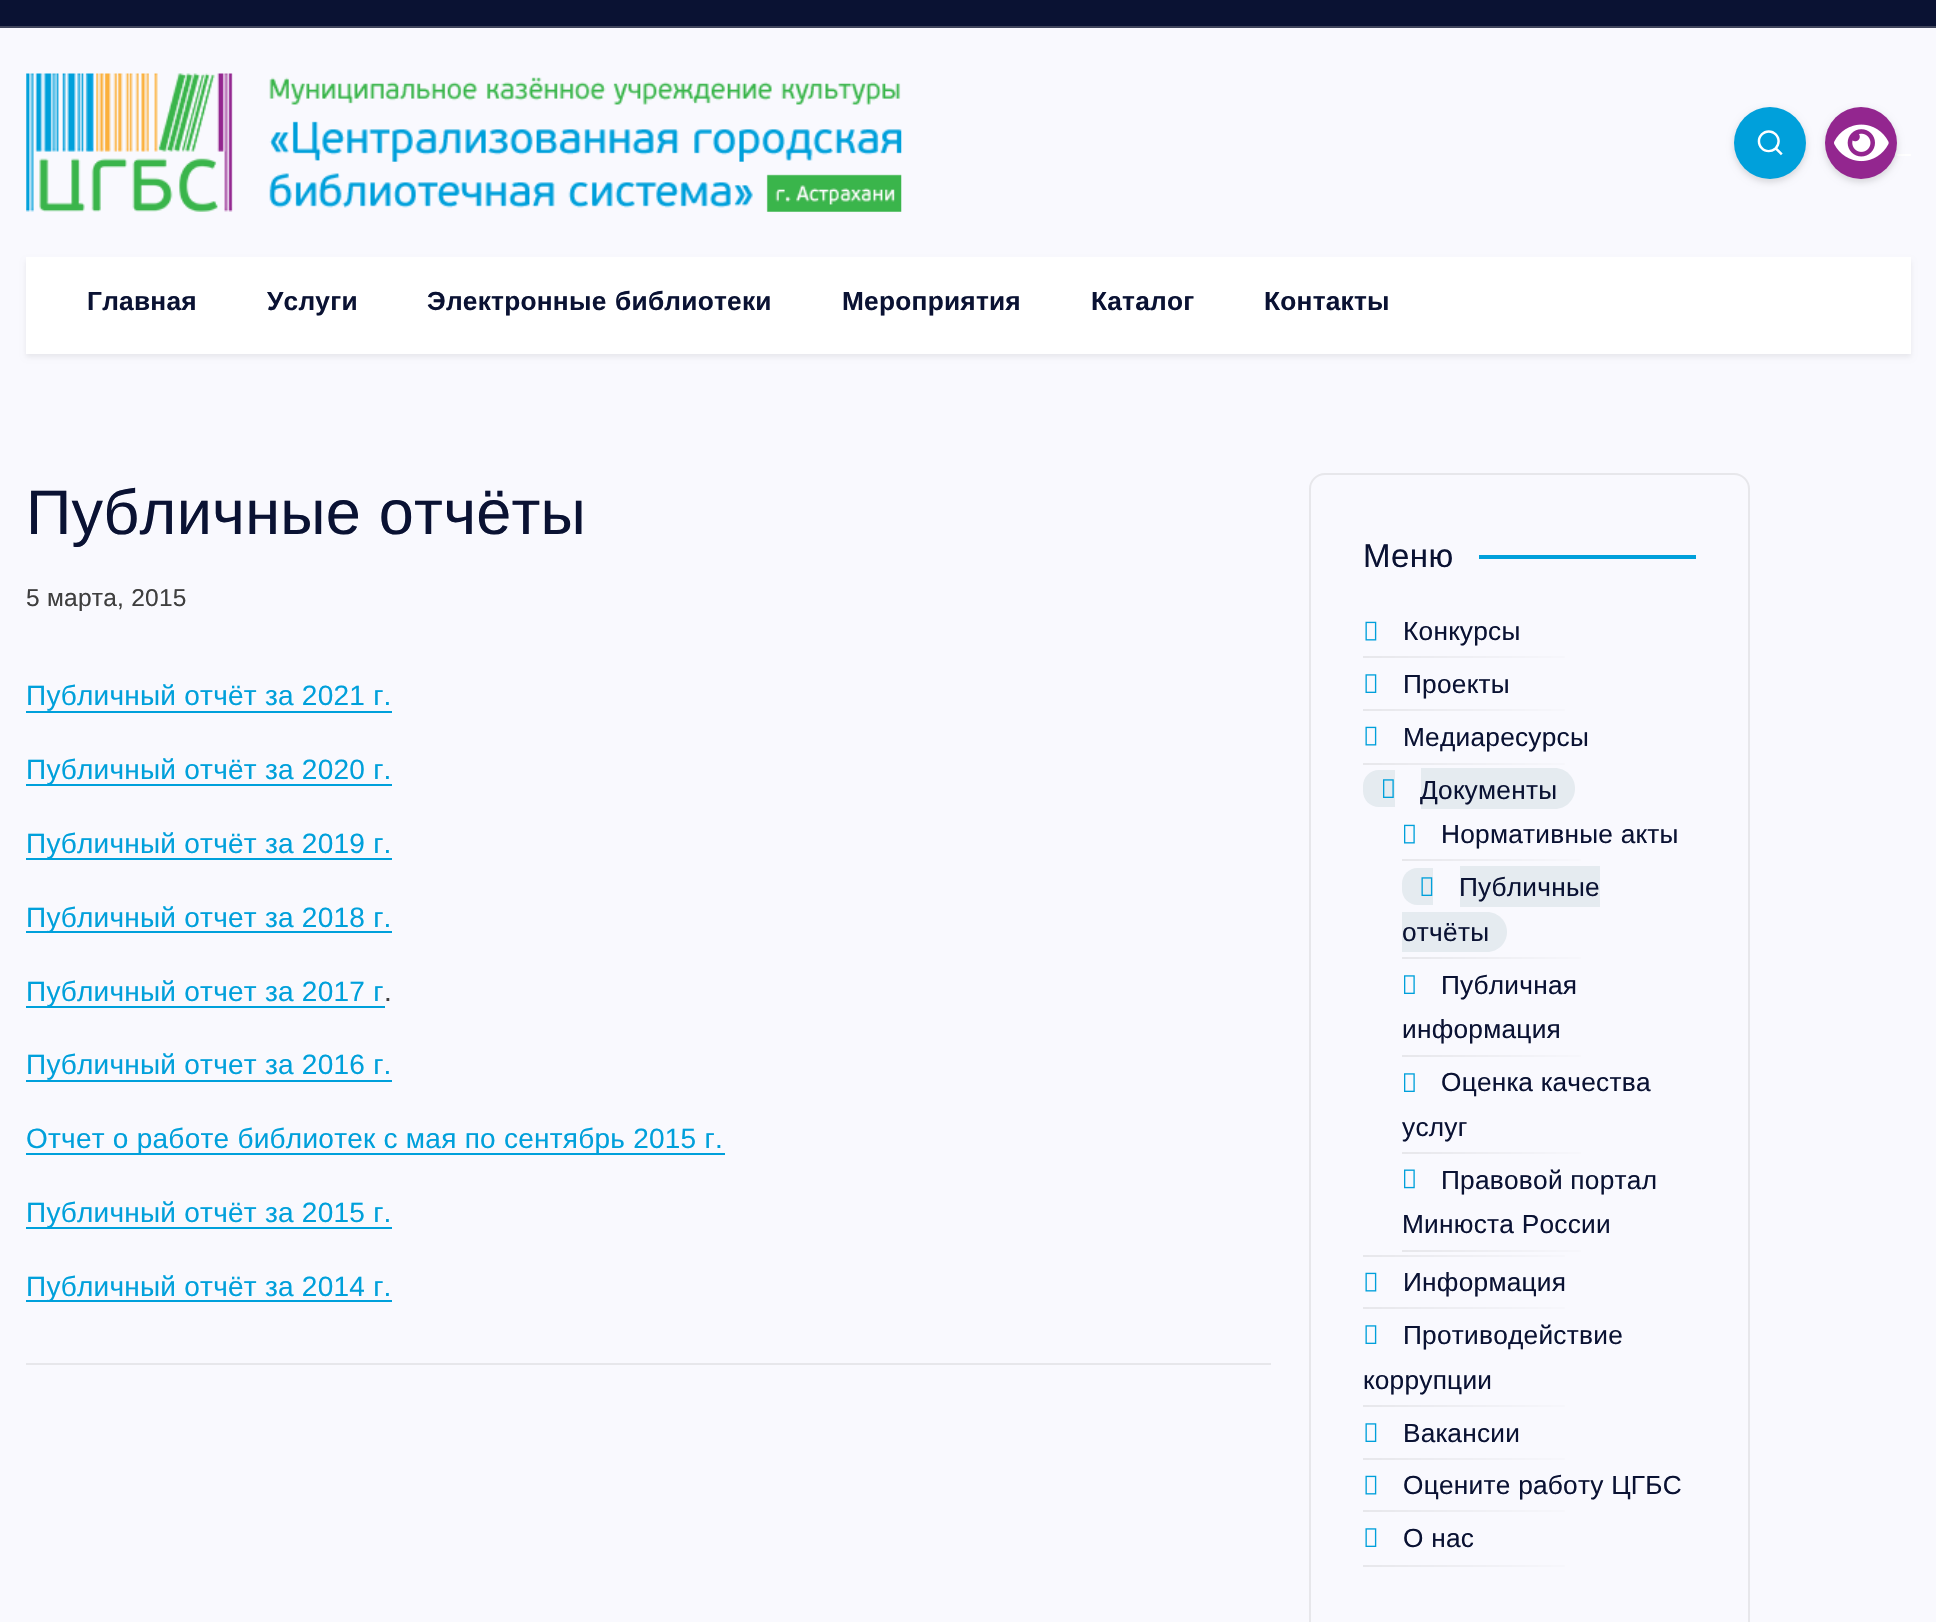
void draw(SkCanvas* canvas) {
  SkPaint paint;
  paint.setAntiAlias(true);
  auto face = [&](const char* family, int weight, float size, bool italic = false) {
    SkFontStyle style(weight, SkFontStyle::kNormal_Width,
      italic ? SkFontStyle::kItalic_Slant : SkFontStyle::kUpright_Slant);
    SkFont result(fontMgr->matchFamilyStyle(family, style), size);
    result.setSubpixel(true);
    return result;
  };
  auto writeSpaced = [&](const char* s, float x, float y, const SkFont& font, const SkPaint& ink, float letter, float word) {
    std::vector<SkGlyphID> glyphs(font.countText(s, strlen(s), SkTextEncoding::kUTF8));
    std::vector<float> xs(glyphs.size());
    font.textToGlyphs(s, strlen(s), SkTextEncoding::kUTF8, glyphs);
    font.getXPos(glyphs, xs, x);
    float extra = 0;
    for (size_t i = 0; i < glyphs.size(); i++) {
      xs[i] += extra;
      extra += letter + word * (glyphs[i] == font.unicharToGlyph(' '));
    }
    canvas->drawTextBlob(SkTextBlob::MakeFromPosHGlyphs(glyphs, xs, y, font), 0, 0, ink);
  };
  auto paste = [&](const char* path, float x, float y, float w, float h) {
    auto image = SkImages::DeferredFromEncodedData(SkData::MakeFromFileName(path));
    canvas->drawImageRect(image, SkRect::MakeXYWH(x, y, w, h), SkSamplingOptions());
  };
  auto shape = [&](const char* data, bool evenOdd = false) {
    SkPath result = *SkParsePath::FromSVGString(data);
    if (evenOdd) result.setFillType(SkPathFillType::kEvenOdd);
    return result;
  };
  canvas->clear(0xfff9f9fe);
  paint.setColor(0xff0a1233);
  canvas->drawRect(SkRect::MakeXYWH(0, 0, 1936, 26), paint);
  paint.setColor(0xff40455c);
  canvas->drawRect(SkRect::MakeXYWH(0, 26, 1936, 2), paint);
  paste("img/1.png", 26, 73, 876, 139);
  paint.setColor(0x26000000);
  paint.setMaskFilter(SkMaskFilter::MakeBlur(kNormal_SkBlurStyle, 3.5f));
  canvas->drawRoundRect(SkRect::MakeXYWH(1734, 110, 72, 72), 36, 36, paint);
  paint.setMaskFilter(nullptr);
  paint.setColor(0xff00a0db);
  canvas->drawCircle(1770, 143, 36, paint);
  paste("img/2.png", 1757, 130, 26, 26);
  paint.setColor(0xffffffff);
  canvas->drawRect(SkRect::MakeXYWH(1897, 154, 14, 2), paint);
  paint.setColor(0x26000000);
  paint.setMaskFilter(SkMaskFilter::MakeBlur(kNormal_SkBlurStyle, 3.5f));
  canvas->drawRoundRect(SkRect::MakeXYWH(1825, 110, 72, 72), 36, 36, paint);
  paint.setMaskFilter(nullptr);
  paint.setColor(0xff93268f);
  canvas->drawCircle(1861, 143, 36, paint);
  paste("img/3.png", 1834, 124, 55, 38);
  paint.setColor(0x12000000);
  paint.setMaskFilter(SkMaskFilter::MakeBlur(kNormal_SkBlurStyle, 2.5f));
  canvas->drawRect(SkRect::MakeXYWH(26, 261, 1885, 96), paint);
  paint.setMaskFilter(nullptr);
  {
    const struct { float x, y, w, h; SkColor color; } items[] = {
      {26, 257, 1885, 97, 0xffffffff},
      {26, 711, 366, 2, 0xff00a0db},
      {26, 784, 366, 2, 0xff00a0db},
      {26, 858, 366, 2, 0xff00a0db},
      {26, 931, 366, 2, 0xff00a0db},
      {26, 1006, 359, 2, 0xff00a0db},
      {26, 1080, 366, 2, 0xff00a0db},
      {26, 1153, 699, 2, 0xff00a0db},
      {26, 1227, 366, 2, 0xff00a0db},
      {26, 1300, 366, 2, 0xff00a0db},
      {26, 1363, 1245, 2, 0xffe7e7eb},
    };
    for (auto [x, y, w, h, color] : items) {
      paint.setColor(color);
      canvas->drawRect(SkRect::MakeXYWH(x, y, w, h), paint);
    }
  }
  paint.setStroke(true);
  paint.setStrokeWidth(2);
  canvas->drawRoundRect(SkRect::MakeXYWH(1310, 474, 439, 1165), 15, 15, paint);
  paint.setStroke(false);
  paint.setColor(0xff00a0db);
  canvas->drawRect(SkRect::MakeXYWH(1479, 555, 217, 4), paint);
  paste("img/4.png", 1365, 621, 12, 20);
  {
    const SkColor colors[] = {0xffe7e7eb, 0xfff9f9fe};
    const float stops[] = {0, 1};
    const SkPoint ends[] = {{1363, 657}, {1596, 657}};
    paint.setShader(SkGradientShader::MakeLinear(ends, colors, stops, 2, SkTileMode::kClamp));
    paint.setAlpha(255);
  }
  canvas->drawRect(SkRect::MakeXYWH(1363, 656, 202, 2), paint);
  paste("img/5.png", 1365, 674, 12, 19);
  {
    const SkColor colors[] = {0xffe7e7eb, 0xfff9f9fe};
    const float stops[] = {0, 1};
    const SkPoint ends[] = {{1363, 710}, {1596, 710}};
    paint.setShader(SkGradientShader::MakeLinear(ends, colors, stops, 2, SkTileMode::kClamp));
    paint.setAlpha(255);
  }
  canvas->drawRect(SkRect::MakeXYWH(1363, 709, 202, 2), paint);
  paste("img/4.png", 1365, 726, 12, 20);
  {
    const SkColor colors[] = {0xffe7e7eb, 0xfff9f9fe};
    const float stops[] = {0, 1};
    const SkPoint ends[] = {{1363, 764}, {1596, 764}};
    paint.setShader(SkGradientShader::MakeLinear(ends, colors, stops, 2, SkTileMode::kClamp));
    paint.setAlpha(255);
  }
  canvas->drawRect(SkRect::MakeXYWH(1363, 763, 202, 2), paint);
  paint.setShader(nullptr);
  paint.setColor(0xffe5ebf0);
  canvas->drawPath(shape("M1379 770H1395V807H1379C1370 807 1363 800 1363 791V786C1363 777 1370 770 1379 770Z"), paint);
  paste("img/6.png", 1383, 779, 11, 19);
  canvas->drawPath(shape("M1421 768H1554.5C1566 768 1575 777 1575 788.5C1575 800 1566 809 1554.5 809H1421Z"), paint);
  paste("img/7.png", 1404, 824, 11, 20);
  {
    const SkColor colors[] = {0xffe7e7eb, 0xfff9f9fe};
    const float stops[] = {0, 1};
    const SkPoint ends[] = {{1402, 860}, {1608, 860}};
    paint.setShader(SkGradientShader::MakeLinear(ends, colors, stops, 2, SkTileMode::kClamp));
    paint.setAlpha(255);
  }
  canvas->drawRect(SkRect::MakeXYWH(1402, 859, 179, 2), paint);
  paint.setShader(nullptr);
  paint.setColor(0xffe5ebf0);
  canvas->drawPath(shape("M1417.5 868H1433V905H1417.5C1409 905 1402 898 1402 889.5V883.5C1402 875 1409 868 1417.5 868Z"), paint);
  paste("img/8.png", 1421, 877, 12, 19);
  canvas->drawRect(SkRect::MakeXYWH(1460, 866, 140, 41), paint);
  canvas->drawPath(shape("M1402 912H1487C1498 912 1507 921 1507 932C1507 943 1498 952 1487 952H1402Z"), paint);
  {
    const SkColor colors[] = {0xffe7e7eb, 0xfff9f9fe};
    const float stops[] = {0, 1};
    const SkPoint ends[] = {{1402, 958}, {1608, 958}};
    paint.setShader(SkGradientShader::MakeLinear(ends, colors, stops, 2, SkTileMode::kClamp));
    paint.setAlpha(255);
  }
  canvas->drawRect(SkRect::MakeXYWH(1402, 957, 179, 2), paint);
  paste("img/9.png", 1404, 975, 11, 19);
  {
    const SkColor colors[] = {0xffe7e7eb, 0xfff9f9fe};
    const float stops[] = {0, 1};
    const SkPoint ends[] = {{1402, 1056}, {1608, 1056}};
    paint.setShader(SkGradientShader::MakeLinear(ends, colors, stops, 2, SkTileMode::kClamp));
    paint.setAlpha(255);
  }
  canvas->drawRect(SkRect::MakeXYWH(1402, 1055, 179, 2), paint);
  paste("img/9.png", 1404, 1073, 11, 19);
  {
    const SkColor colors[] = {0xffe7e7eb, 0xfff9f9fe};
    const float stops[] = {0, 1};
    const SkPoint ends[] = {{1402, 1152}, {1608, 1152}};
    paint.setShader(SkGradientShader::MakeLinear(ends, colors, stops, 2, SkTileMode::kClamp));
    paint.setAlpha(255);
  }
  canvas->drawRect(SkRect::MakeXYWH(1402, 1152, 179, 2), paint);
  paste("img/10.png", 1404, 1169, 11, 20);
  {
    const SkColor colors[] = {0xffe7e7eb, 0xfff9f9fe};
    const float stops[] = {0, 1};
    const SkPoint ends[] = {{1402, 1250}, {1608, 1250}};
    paint.setShader(SkGradientShader::MakeLinear(ends, colors, stops, 2, SkTileMode::kClamp));
    paint.setAlpha(255);
  }
  canvas->drawRect(SkRect::MakeXYWH(1402, 1250, 179, 2), paint);
  {
    const SkColor colors[] = {0xffe7e7eb, 0xfff9f9fe};
    const float stops[] = {0, 1};
    const SkPoint ends[] = {{1363, 1256}, {1596, 1256}};
    paint.setShader(SkGradientShader::MakeLinear(ends, colors, stops, 2, SkTileMode::kClamp));
    paint.setAlpha(255);
  }
  canvas->drawRect(SkRect::MakeXYWH(1363, 1255, 202, 2), paint);
  paste("img/4.png", 1365, 1272, 12, 20);
  {
    const SkColor colors[] = {0xffe7e7eb, 0xfff9f9fe};
    const float stops[] = {0, 1};
    const SkPoint ends[] = {{1363, 1308}, {1596, 1308}};
    paint.setShader(SkGradientShader::MakeLinear(ends, colors, stops, 2, SkTileMode::kClamp));
    paint.setAlpha(255);
  }
  canvas->drawRect(SkRect::MakeXYWH(1363, 1307, 202, 2), paint);
  paste("img/5.png", 1365, 1325, 12, 19);
  {
    const SkColor colors[] = {0xffe7e7eb, 0xfff9f9fe};
    const float stops[] = {0, 1};
    const SkPoint ends[] = {{1363, 1406}, {1596, 1406}};
    paint.setShader(SkGradientShader::MakeLinear(ends, colors, stops, 2, SkTileMode::kClamp));
    paint.setAlpha(255);
  }
  canvas->drawRect(SkRect::MakeXYWH(1363, 1405, 202, 2), paint);
  paste("img/5.png", 1365, 1423, 12, 19);
  {
    const SkColor colors[] = {0xffe7e7eb, 0xfff9f9fe};
    const float stops[] = {0, 1};
    const SkPoint ends[] = {{1363, 1459}, {1596, 1459}};
    paint.setShader(SkGradientShader::MakeLinear(ends, colors, stops, 2, SkTileMode::kClamp));
    paint.setAlpha(255);
  }
  canvas->drawRect(SkRect::MakeXYWH(1363, 1458, 202, 2), paint);
  paste("img/4.png", 1365, 1475, 12, 20);
  {
    const SkColor colors[] = {0xffe7e7eb, 0xfff9f9fe};
    const float stops[] = {0, 1};
    const SkPoint ends[] = {{1363, 1511}, {1596, 1511}};
    paint.setShader(SkGradientShader::MakeLinear(ends, colors, stops, 2, SkTileMode::kClamp));
    paint.setAlpha(255);
  }
  canvas->drawRect(SkRect::MakeXYWH(1363, 1510, 202, 2), paint);
  paste("img/5.png", 1365, 1528, 12, 19);
  {
    const SkColor colors[] = {0xffe7e7eb, 0xfff9f9fe};
    const float stops[] = {0, 1};
    const SkPoint ends[] = {{1363, 1565}, {1596, 1565}};
    paint.setShader(SkGradientShader::MakeLinear(ends, colors, stops, 2, SkTileMode::kClamp));
    paint.setAlpha(255);
  }
  canvas->drawRect(SkRect::MakeXYWH(1363, 1565, 202, 2), paint);
  auto f0 = face("Liberation Sans", 700, 26.25f);
  paint.setShader(nullptr);
  paint.setColor(0xff0a1233);
  writeSpaced("Главная", 87, 310, f0, paint, 0.25f, 0);
  writeSpaced("Услуги", 267, 310, f0, paint, 0.25f, 0);
  writeSpaced("Электронные библиотеки", 427, 310, f0, paint, 0.25f, 1);
  {
    const struct { const char* s; float x, y; } items[] = {
      {"Мероприятия", 842, 310},
      {"Каталог", 1091, 310},
      {"Контакты", 1264, 310},
    };
    for (auto [s, x, y] : items) {
      writeSpaced(s, x, y, f0, paint, 0.25f, 0);
    }
  }
  auto f1 = face("Liberation Sans", 400, 63);
  writeSpaced("Публичные отчёты", 26, 534, f1, paint, 0.25f, 0);
  auto f2 = face("Liberation Sans", 400, 24.5f);
  paint.setColor(0xff3f3f3f);
  writeSpaced("5 марта, 2015", 26, 606, f2, paint, 0.25f, 0);
  auto f3 = face("Liberation Sans", 400, 28);
  paint.setColor(0xff00a0db);
  {
    const struct { const char* s; float x, y; } items[] = {
      {"Публичный отчёт за 2021 г.", 26, 705},
      {"Публичный отчёт за 2020 г.", 26, 779},
      {"Публичный отчёт за 2019 г.", 26, 853},
      {"Публичный отчет за 2018 г.", 26, 927},
      {"Публичный отчет за 2017 г", 26, 1001},
    };
    for (auto [s, x, y] : items) {
      writeSpaced(s, x, y, f3, paint, 0.25f, 0);
    }
  }
  paint.setColor(0xff3f3f3f);
  writeSpaced(".", 384, 1001, f3, paint, 0.25f, 0);
  paint.setColor(0xff00a0db);
  {
    const struct { const char* s; float x, y; } items[] = {
      {"Публичный отчет за 2016 г.", 26, 1074},
      {"Отчет о работе библиотек с мая по сентябрь 2015 г.", 26, 1148},
      {"Публичный отчёт за 2015 г.", 26, 1222},
      {"Публичный отчёт за 2014 г.", 26, 1296},
    };
    for (auto [s, x, y] : items) {
      writeSpaced(s, x, y, f3, paint, 0.25f, 0);
    }
  }
  auto f4 = face("Liberation Sans", 400, 33);
  paint.setColor(0xff0a1233);
  writeSpaced("Меню", 1363, 567, f4, paint, 0.5f, 0);
  auto f5 = face("Liberation Sans", 400, 26.25f);
  {
    const struct { const char* s; float x, y; } items[] = {
      {"Конкурсы", 1403, 640},
      {"Проекты", 1403, 693},
      {"Медиаресурсы", 1403, 746},
      {"Документы", 1420, 799},
      {"Нормативные акты", 1441, 843},
      {"Публичные", 1459, 896},
      {"отчёты", 1402, 941},
      {"Публичная", 1441, 994},
      {"информация", 1402, 1038},
      {"Оценка качества", 1441, 1091},
      {"услуг", 1402, 1136},
      {"Правовой портал", 1441, 1189},
      {"Минюста России", 1402, 1233},
      {"Информация", 1403, 1291},
      {"Противодействие", 1403, 1344},
      {"коррупции", 1363, 1389},
      {"Вакансии", 1403, 1442},
      {"Оцените работу ЦГБС", 1403, 1494},
      {"О нас", 1403, 1547},
    };
    for (auto [s, x, y] : items) {
      writeSpaced(s, x, y, f5, paint, 0.25f, 0);
    }
  }
}
